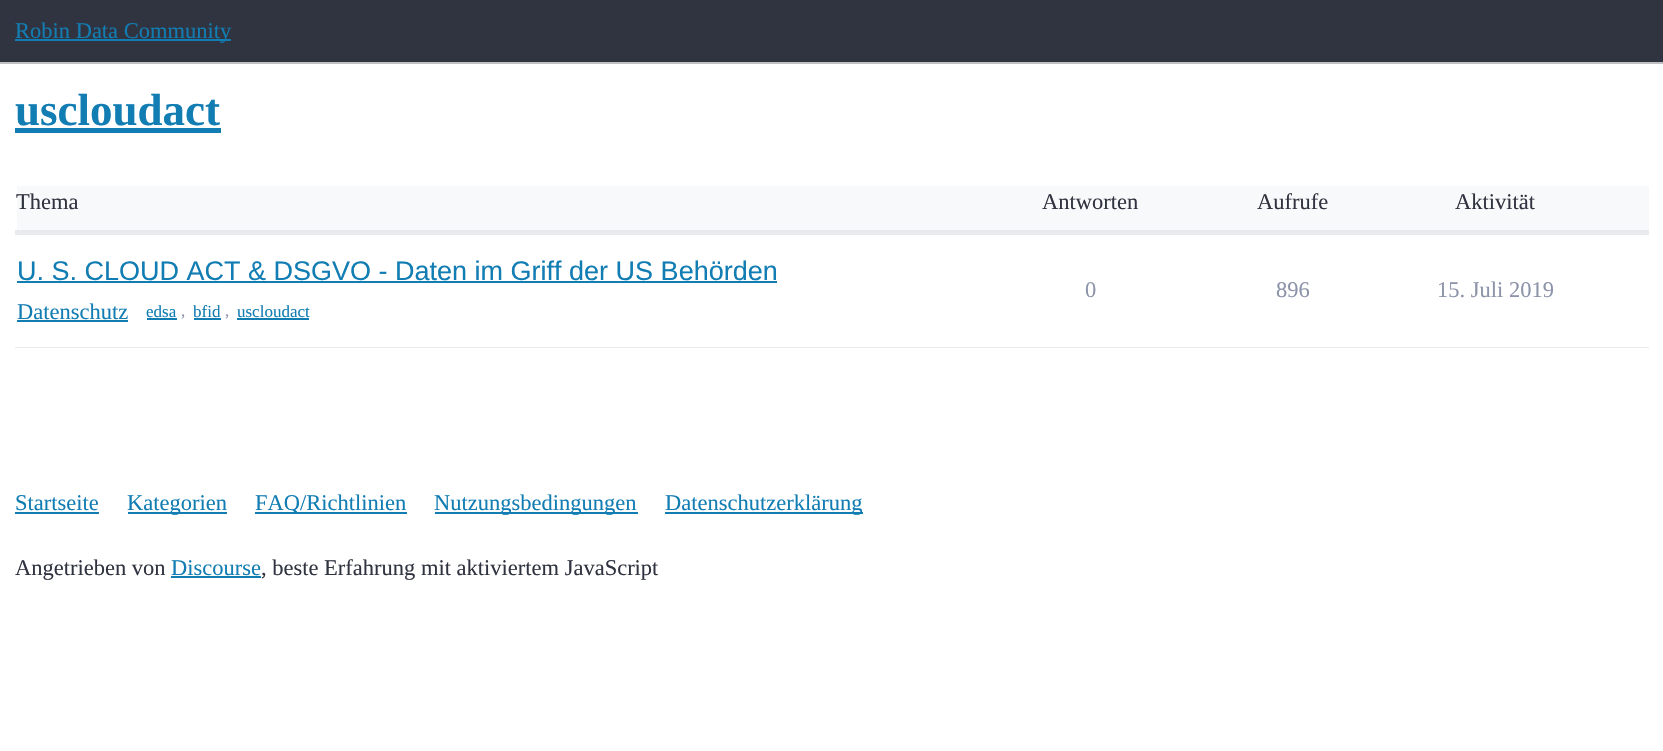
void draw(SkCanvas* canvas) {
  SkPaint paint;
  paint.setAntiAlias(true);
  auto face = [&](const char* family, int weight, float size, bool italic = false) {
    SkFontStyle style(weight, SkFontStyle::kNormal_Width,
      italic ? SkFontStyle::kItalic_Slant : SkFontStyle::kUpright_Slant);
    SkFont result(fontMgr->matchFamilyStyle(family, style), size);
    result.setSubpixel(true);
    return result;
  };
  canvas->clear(0xffffffff);
  {
    const struct { float x, y, w, h; SkColor color; } items[] = {
      {0, 0, 1663, 62, 0xff303440},
      {0, 62, 1663, 2, 0xffc0c0c2},
      {15, 39, 216, 2, 0xff127db3},
      {15, 128, 206, 5, 0xff127db3},
      {17, 186, 1632, 44, 0xfff8f9fa},
      {15, 230, 1634, 5, 0xffe8eaee},
      {15, 347, 1634, 1, 0xffe8eaee},
      {17, 281, 760, 2, 0xff127db3},
      {17, 320, 111, 2, 0xff127db3},
      {147, 318, 30, 2, 0xff127db3},
      {194, 318, 27, 2, 0xff127db3},
      {237, 318, 72, 2, 0xff127db3},
      {15, 512, 84, 2, 0xff127db3},
      {128, 512, 99, 2, 0xff127db3},
      {255, 512, 152, 2, 0xff127db3},
      {435, 512, 203, 2, 0xff127db3},
      {665, 512, 198, 2, 0xff127db3},
      {171, 576, 90, 2, 0xff127db3},
    };
    for (auto [x, y, w, h, color] : items) {
      paint.setColor(color);
      canvas->drawRect(SkRect::MakeXYWH(x, y, w, h), paint);
    }
  }
  auto f0 = face("Liberation Serif", 400, 22.5f);
  canvas->drawString("Robin Data Community", 15, 38, f0, paint);
  auto f1 = face("Liberation Serif", 700, 45);
  canvas->drawString("uscloudact", 15, 125, f1, paint);
  paint.setColor(0xff303440);
  {
    const struct { const char* s; float x, y; } items[] = {
      {"Thema", 16, 209},
      {"Antworten", 1042, 209},
      {"Aufrufe", 1257, 209},
      {"Aktivität", 1455, 209},
    };
    for (auto [s, x, y] : items) {
      canvas->drawString(s, x, y, f0, paint);
    }
  }
  auto f2 = face("Liberation Sans", 400, 27);
  paint.setColor(0xff127db3);
  canvas->drawString("U. S. CLOUD ACT & DSGVO - Daten im Griff der US Behörden", 17, 280, f2, paint);
  canvas->drawString("Datenschutz", 17, 319, f0, paint);
  auto f3 = face("Liberation Serif", 400, 17);
  canvas->drawString("edsa", 146, 317, f3, paint);
  paint.setColor(0xff8d94aa);
  canvas->drawString(",", 181, 316, f3, paint);
  paint.setColor(0xff127db3);
  canvas->drawString("bfid", 193, 317, f3, paint);
  paint.setColor(0xff8d94aa);
  canvas->drawString(",", 225, 316, f3, paint);
  paint.setColor(0xff127db3);
  canvas->drawString("uscloudact", 237, 317, f3, paint);
  paint.setColor(0xff8d94aa);
  {
    const struct { const char* s; float x, y; } items[] = {
      {"0", 1085, 297},
      {"896", 1276, 297},
      {"15. Juli 2019", 1437, 297},
    };
    for (auto [s, x, y] : items) {
      canvas->drawString(s, x, y, f0, paint);
    }
  }
  paint.setColor(0xff127db3);
  {
    const struct { const char* s; float x, y; } items[] = {
      {"Startseite", 15, 510},
      {"Kategorien", 127, 510},
      {"FAQ/Richtlinien", 255, 510},
      {"Nutzungsbedingungen", 434, 510},
      {"Datenschutzerklärung", 665, 510},
    };
    for (auto [s, x, y] : items) {
      canvas->drawString(s, x, y, f0, paint);
    }
  }
  paint.setColor(0xff303440);
  canvas->drawString("Angetrieben von", 15, 575, f0, paint);
  paint.setColor(0xff127db3);
  canvas->drawString("Discourse", 171, 575, f0, paint);
  paint.setColor(0xff303440);
  canvas->drawString(", beste Erfahrung mit aktiviertem JavaScript", 261, 575, f0, paint);
}
